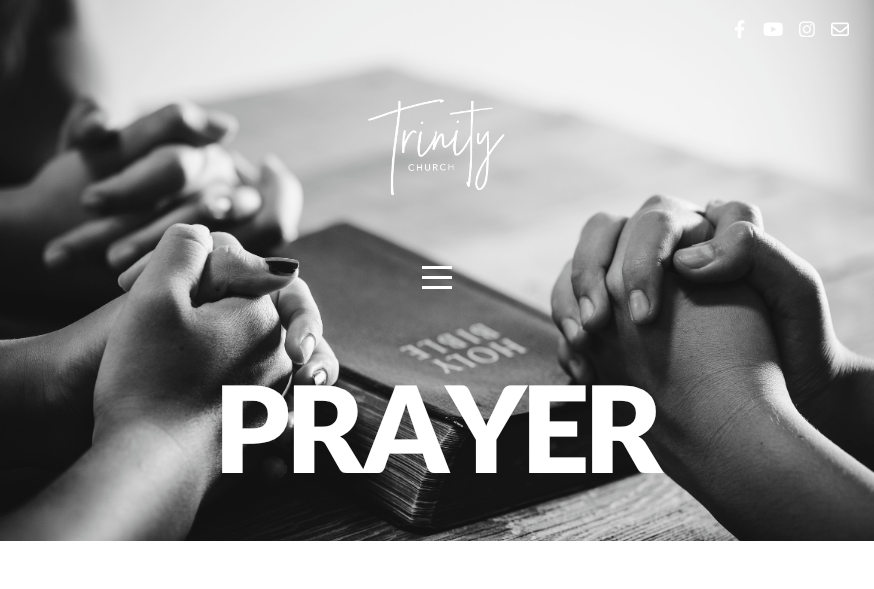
void draw(SkCanvas* canvas) {
  SkPaint paint;
  paint.setAntiAlias(true);
  auto face = [&](const char* family, int weight, float size, bool italic = false) {
    SkFontStyle style(weight, SkFontStyle::kNormal_Width,
      italic ? SkFontStyle::kItalic_Slant : SkFontStyle::kUpright_Slant);
    SkFont result(fontMgr->matchFamilyStyle(family, style), size);
    result.setSubpixel(true);
    return result;
  };
  auto writeSpaced = [&](const char* s, float x, float y, const SkFont& font, const SkPaint& ink, float letter, float word) {
    std::vector<SkGlyphID> glyphs(font.countText(s, strlen(s), SkTextEncoding::kUTF8));
    std::vector<float> xs(glyphs.size());
    font.textToGlyphs(s, strlen(s), SkTextEncoding::kUTF8, glyphs);
    font.getXPos(glyphs, xs, x);
    float extra = 0;
    for (size_t i = 0; i < glyphs.size(); i++) {
      xs[i] += extra;
      extra += letter + word * (glyphs[i] == font.unicharToGlyph(' '));
    }
    canvas->drawTextBlob(SkTextBlob::MakeFromPosHGlyphs(glyphs, xs, y, font), 0, 0, ink);
  };
  auto paste = [&](const char* path, float x, float y, float w, float h) {
    auto image = SkImages::DeferredFromEncodedData(SkData::MakeFromFileName(path));
    canvas->drawImageRect(image, SkRect::MakeXYWH(x, y, w, h), SkSamplingOptions());
  };
  canvas->clear(0xffffffff);
  paste("img/6.png", 0, 0, 874, 541);
  paste("img/1.png", 735, 20, 10, 19);
  paste("img/2.png", 763, 22, 20, 14);
  paste("img/3.png", 799, 21, 16, 16);
  paste("img/4.png", 831, 22, 18, 14);
  paste("img/5.png", 368, 99, 137, 97);
  {
    const struct { float x, y, w, h; SkColor color; } items[] = {
      {422, 266, 30, 3, 0xffffffff},
      {422, 276, 30, 3, 0xffffffff},
      {422, 286, 30, 3, 0xffffffff},
    };
    for (auto [x, y, w, h, color] : items) {
      paint.setColor(color);
      canvas->drawRect(SkRect::MakeXYWH(x, y, w, h), paint);
    }
  }
  auto f0 = face("Lato", 900, 120);
  writeSpaced("PRAYER", 215, 473, f0, paint, -4.75f, 0);
}
